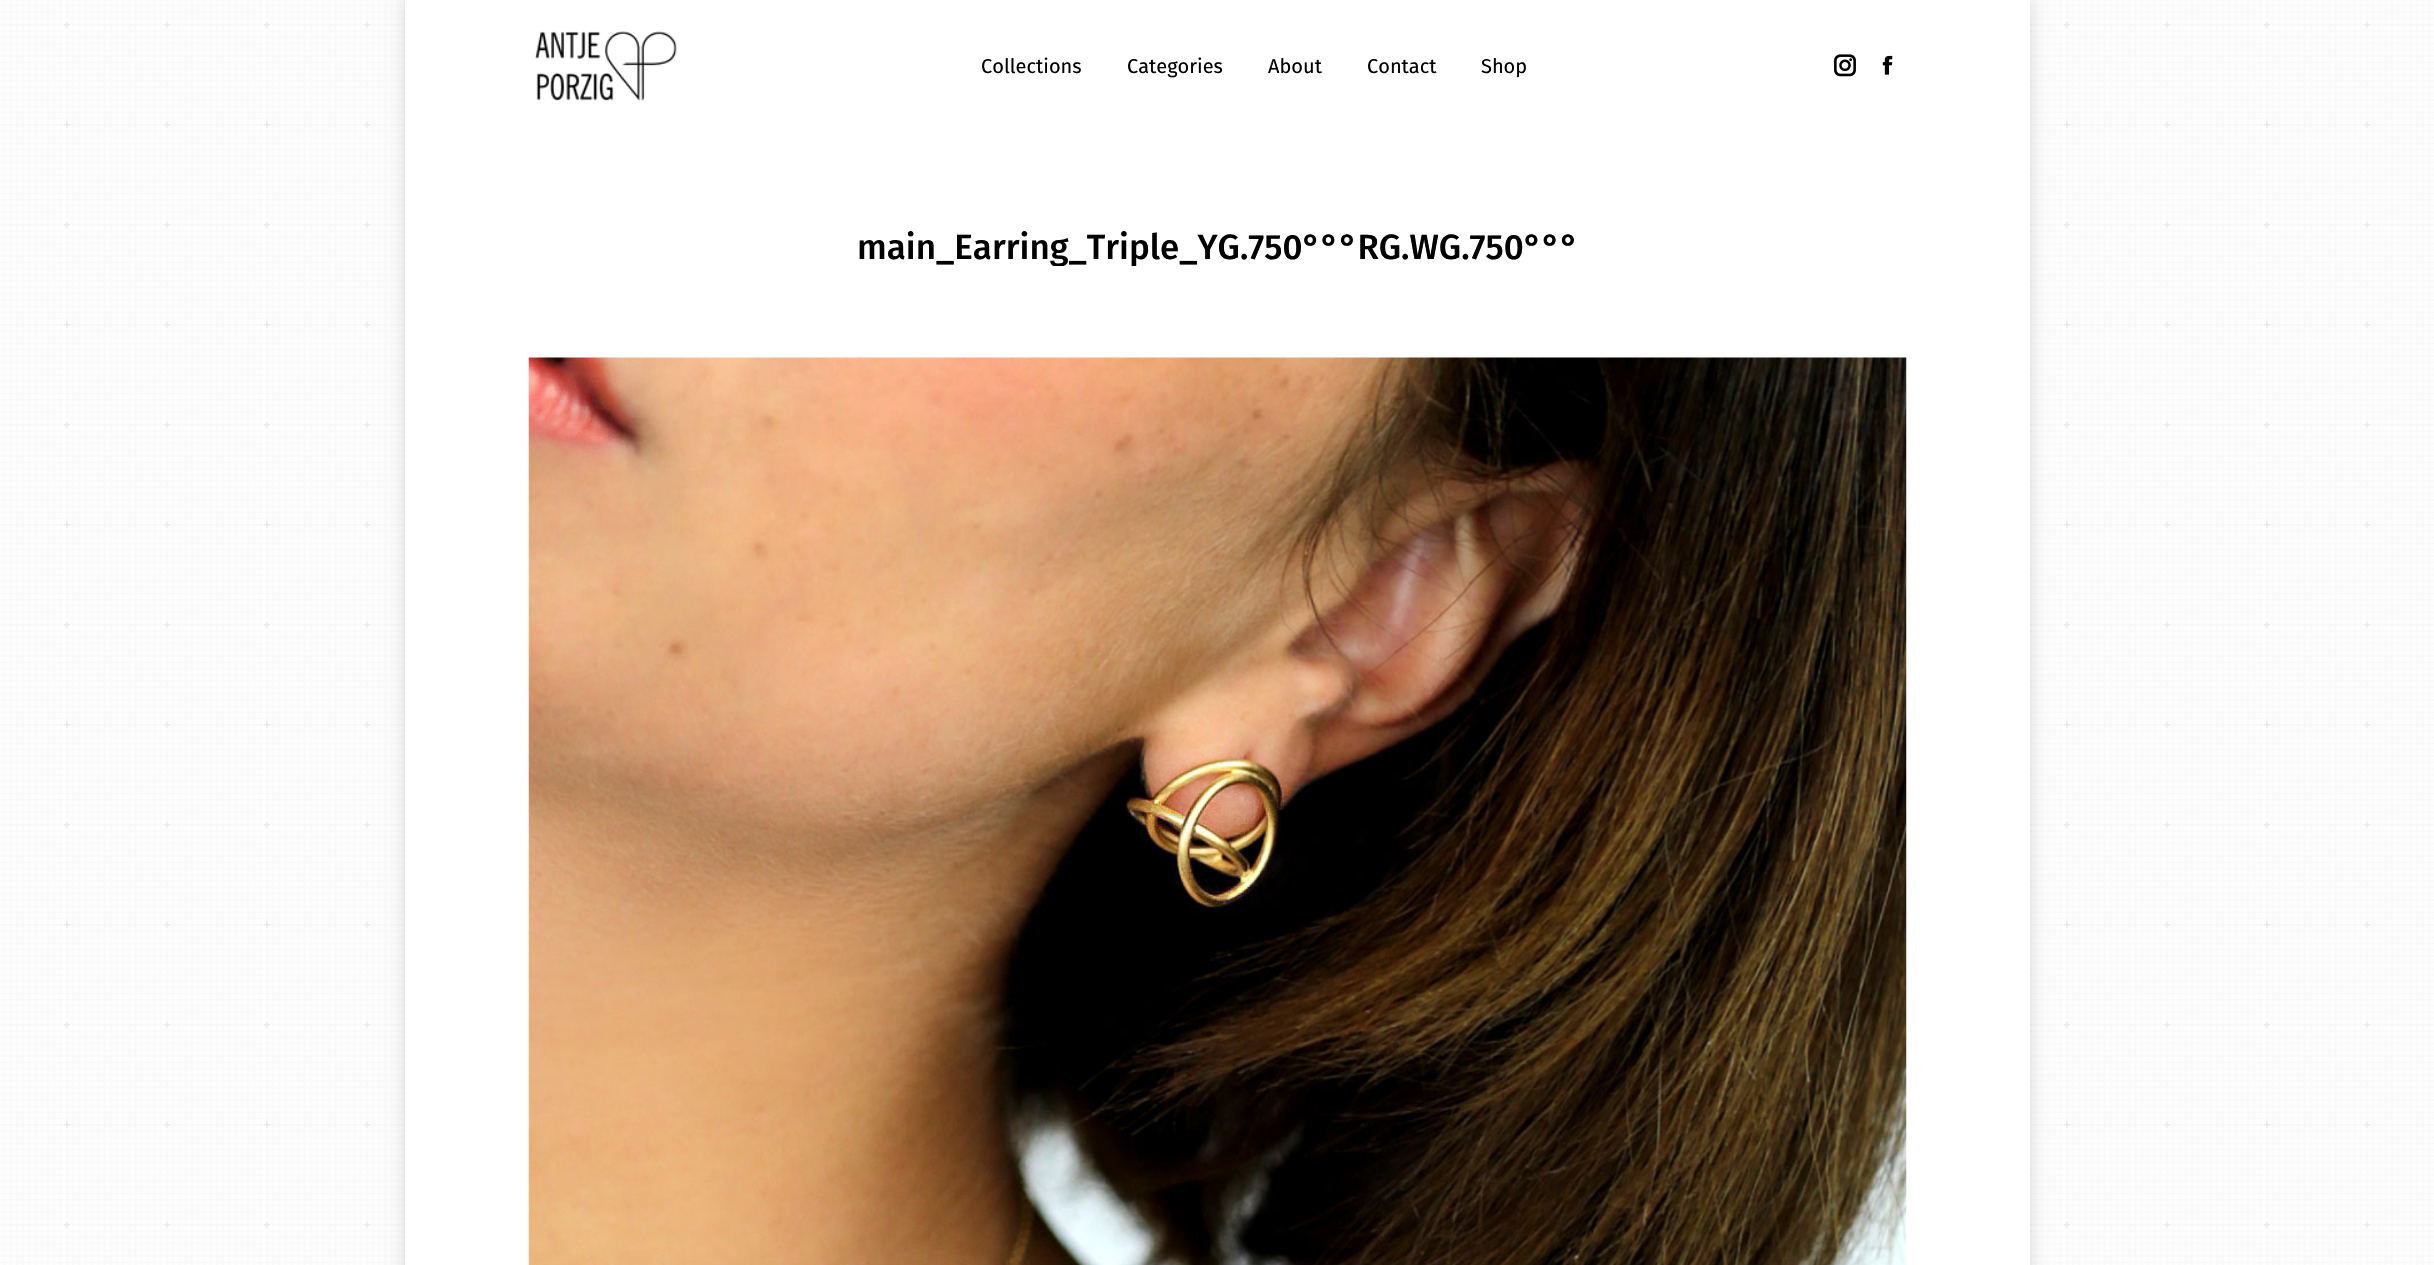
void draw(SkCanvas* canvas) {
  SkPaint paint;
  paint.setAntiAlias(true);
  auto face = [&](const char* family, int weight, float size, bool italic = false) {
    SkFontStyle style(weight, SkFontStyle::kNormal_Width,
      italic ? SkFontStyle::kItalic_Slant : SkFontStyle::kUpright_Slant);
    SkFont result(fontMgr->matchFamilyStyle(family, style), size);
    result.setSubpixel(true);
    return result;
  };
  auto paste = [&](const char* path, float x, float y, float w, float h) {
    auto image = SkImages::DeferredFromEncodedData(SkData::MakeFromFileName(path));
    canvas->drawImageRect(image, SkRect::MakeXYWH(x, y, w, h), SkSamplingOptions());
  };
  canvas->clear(0xffffffff);
  paste("img/1.png", 0, 0, 2434, 1265);
  paint.setColor(0x26000000);
  paint.setMaskFilter(SkMaskFilter::MakeBlur(kNormal_SkBlurStyle, 7.5f));
  canvas->drawRect(SkRect::MakeXYWH(405, 0, 1625, 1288), paint);
  paint.setMaskFilter(nullptr);
  paint.setColor(0xffffffff);
  canvas->drawRect(SkRect::MakeXYWH(405, 0, 1625, 1265), paint);
  paste("img/2.png", 535, 31, 142, 70);
  paste("img/3.png", 1834, 54, 22, 23);
  paste("img/4.png", 1882, 55, 11, 20);
  paste("img/5.png", 528, 357, 1379, 908);
  auto f0 = face("Fira Sans", 400, 20);
  paint.setColor(0xff000000);
  {
    const struct { const char* s; float x, y; } items[] = {
      {"Collections", 981, 73},
      {"Categories", 1127, 73},
      {"About", 1268, 73},
      {"Contact", 1367, 73},
      {"Shop", 1481, 73},
    };
    for (auto [s, x, y] : items) {
      canvas->drawString(s, x, y, f0, paint);
    }
  }
  canvas->save();
  canvas->clipRect(SkRect::MakeXYWH(856, 231, 723, 35));
  auto f1 = face("Fira Sans", 500, 35);
  canvas->drawString("main_Earring_Triple_YG.750°°°RG.WG.750°°°", 857, 259, f1, paint);
  canvas->restore();
}
